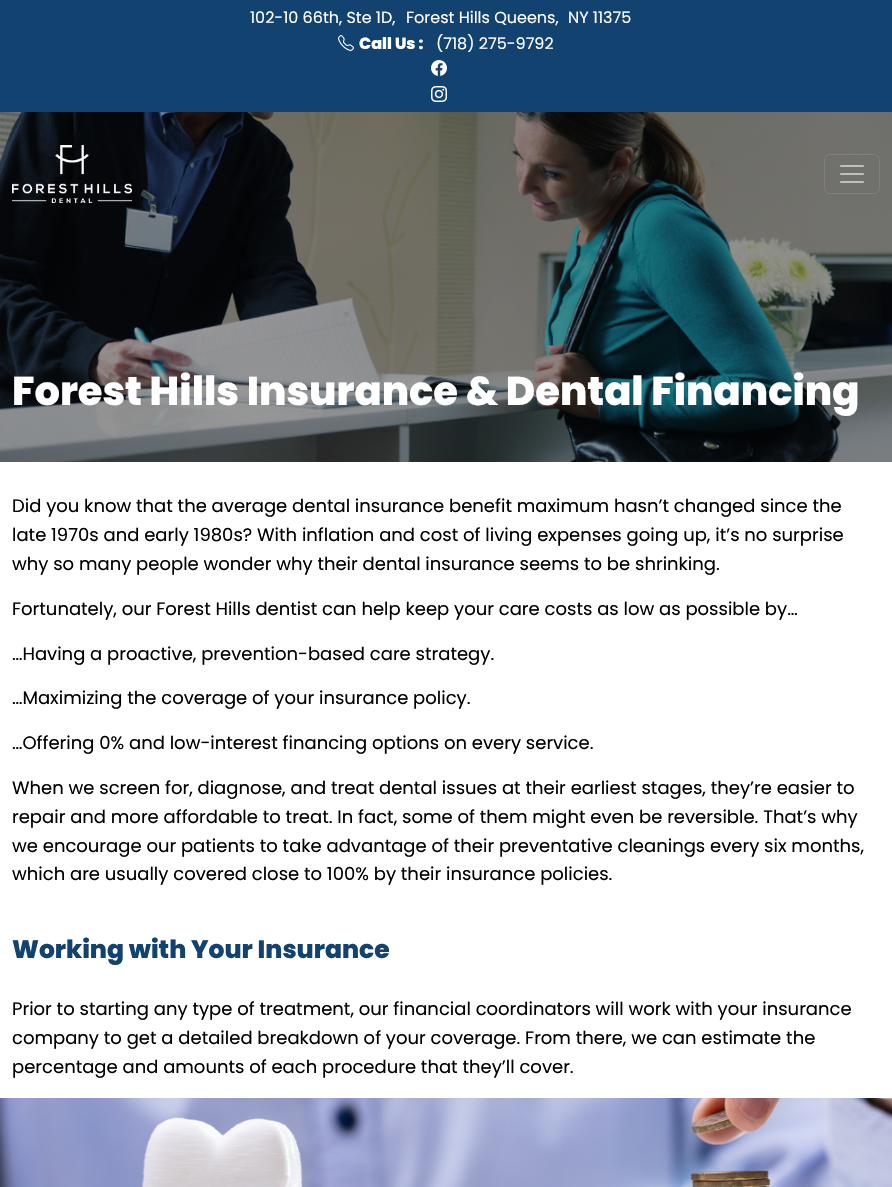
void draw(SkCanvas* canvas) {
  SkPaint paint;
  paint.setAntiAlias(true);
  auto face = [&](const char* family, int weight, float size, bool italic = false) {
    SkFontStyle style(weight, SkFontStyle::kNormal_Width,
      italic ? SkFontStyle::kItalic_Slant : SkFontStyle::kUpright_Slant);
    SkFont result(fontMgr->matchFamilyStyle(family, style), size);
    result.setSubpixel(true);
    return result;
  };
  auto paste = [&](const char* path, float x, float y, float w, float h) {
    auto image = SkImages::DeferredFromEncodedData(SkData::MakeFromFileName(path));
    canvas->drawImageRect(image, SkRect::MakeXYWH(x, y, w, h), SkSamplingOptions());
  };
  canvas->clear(0xffffffff);
  paint.setColor(0xff124270);
  canvas->drawRect(SkRect::MakeXYWH(0, 0, 892, 112), paint);
  paste("img/1.png", 338, 35, 16, 16);
  paste("img/2.png", 431, 60, 16, 16);
  paste("img/3.png", 431, 86, 16, 16);
  paste("img/6.png", 0, 112, 892, 350);
  paste("img/4.png", 12, 145, 120, 58);
  paint.setStroke(true);
  paint.setStrokeWidth(1);
  paint.setColor(0x1affffff);
  canvas->drawRoundRect(SkRect::MakeXYWH(824.5f, 154.5f, 55, 39), 5.5f, 5.5f, paint);
  paste("img/5.png", 840, 165, 24, 18);
  paste("img/7.png", 0, 1098, 892, 89);
  auto f0 = face("Poppins", 400, 16);
  paint.setStroke(false);
  paint.setColor(0xffffffff);
  {
    const struct { const char* s; float x, y; } items[] = {
      {"102-10 66th, Ste 1D,", 250, 23},
      {"Forest Hills Queens,", 406, 23},
      {"NY 11375", 568, 23},
    };
    for (auto [s, x, y] : items) {
      canvas->drawString(s, x, y, f0, paint);
    }
  }
  auto f1 = face("Poppins", 800, 16);
  canvas->drawString("Call Us :", 359, 49, f1, paint);
  canvas->drawString("(718) 275-9792", 436, 49, f0, paint);
  auto f2 = face("Poppins", 800, 40);
  canvas->drawString("Forest Hills Insurance & Dental Financing", 12, 405, f2, paint);
  auto f3 = face("Poppins", 400, 18);
  paint.setColor(0xff000000);
  {
    const struct { const char* s; float x, y; } items[] = {
      {"Did you know that the average dental insurance benefit maximum hasn’t changed since the", 12, 512},
      {"late 1970s and early 1980s? With inflation and cost of living expenses going up, it’s no surprise", 12, 541},
      {"why so many people wonder why their dental insurance seems to be shrinking.", 12, 570},
      {"Fortunately, our Forest Hills dentist can help keep your care costs as low as possible by…", 12, 615},
      {"…Having a proactive, prevention-based care strategy.", 12, 660},
      {"…Maximizing the coverage of your insurance policy.", 12, 704},
      {"…Offering 0% and low-interest financing options on every service.", 12, 749},
      {"When we screen for, diagnose, and treat dental issues at their earliest stages, they’re easier to", 12, 794},
      {"repair and more affordable to treat. In fact, some of them might even be reversible. That’s why", 12, 823},
      {"we encourage our patients to take advantage of their preventative cleanings every six months,", 12, 852},
      {"which are usually covered close to 100% by their insurance policies.", 12, 880},
    };
    for (auto [s, x, y] : items) {
      canvas->drawString(s, x, y, f3, paint);
    }
  }
  auto f4 = face("Poppins", 800, 25);
  paint.setColor(0xff124270);
  canvas->drawString("Working with Your Insurance", 12, 958, f4, paint);
  paint.setColor(0xff000000);
  {
    const struct { const char* s; float x, y; } items[] = {
      {"Prior to starting any type of treatment, our financial coordinators will work with your insurance", 12, 1015},
      {"company to get a detailed breakdown of your coverage. From there, we can estimate the", 12, 1044},
      {"percentage and amounts of each procedure that they’ll cover.", 12, 1073},
    };
    for (auto [s, x, y] : items) {
      canvas->drawString(s, x, y, f3, paint);
    }
  }
}
